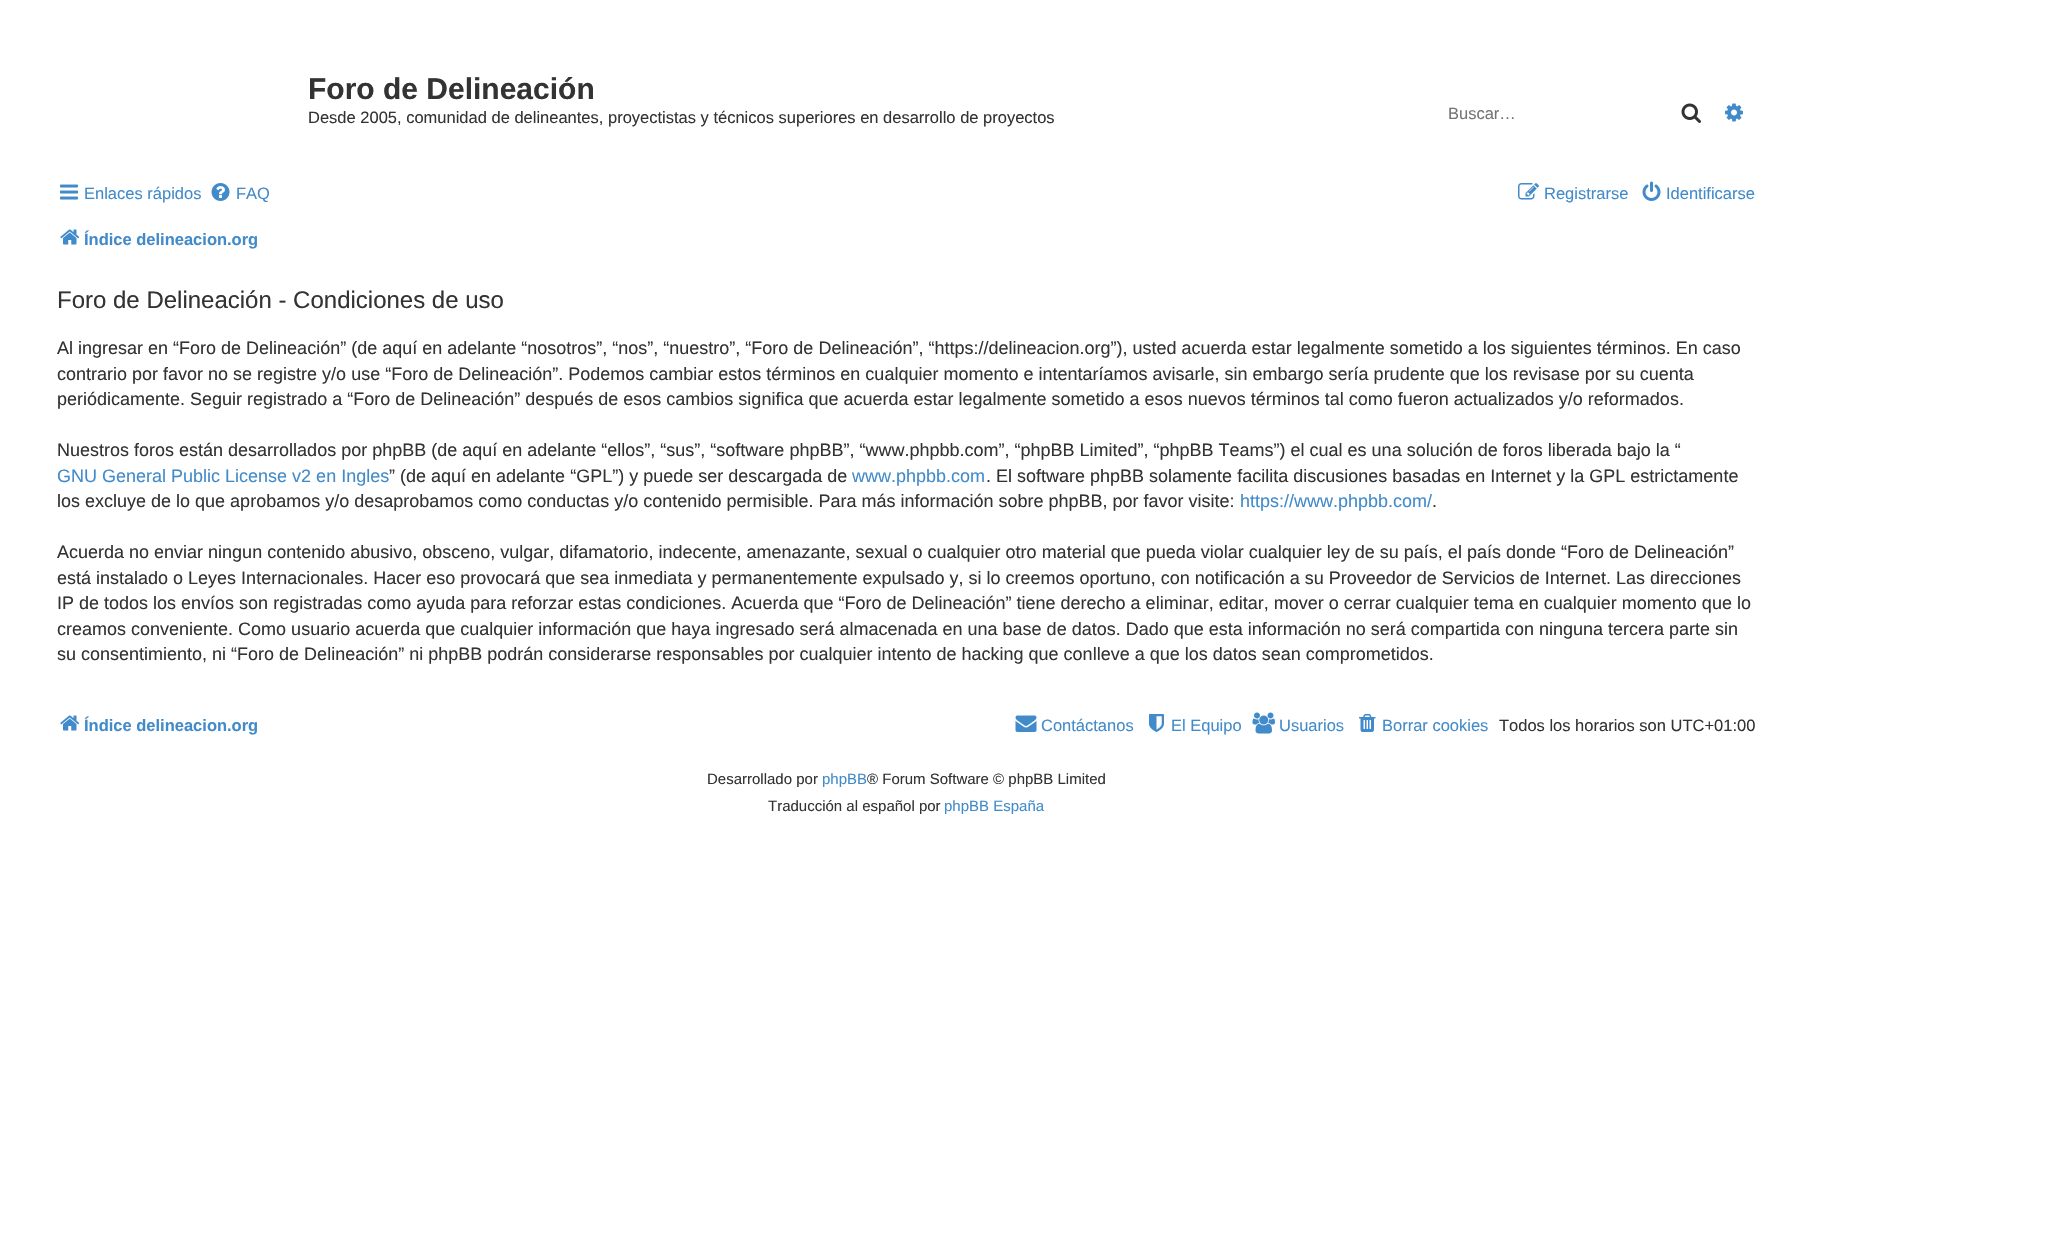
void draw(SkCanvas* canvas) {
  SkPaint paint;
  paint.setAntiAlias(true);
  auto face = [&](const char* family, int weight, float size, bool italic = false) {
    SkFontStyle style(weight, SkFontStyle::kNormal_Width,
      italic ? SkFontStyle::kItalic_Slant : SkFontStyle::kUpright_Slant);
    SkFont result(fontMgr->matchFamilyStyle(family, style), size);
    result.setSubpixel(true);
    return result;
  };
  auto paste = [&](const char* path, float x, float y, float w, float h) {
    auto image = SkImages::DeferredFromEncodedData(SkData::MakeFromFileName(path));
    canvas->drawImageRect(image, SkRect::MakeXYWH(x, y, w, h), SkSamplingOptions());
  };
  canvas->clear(0xffffffff);
  paste("img/1.png", 1681, 103, 20, 20);
  paste("img/2.png", 1725, 103, 18, 19);
  paste("img/3.png", 60, 184, 18, 16);
  paste("img/4.png", 211, 183, 19, 18);
  paste("img/5.png", 1518, 183, 21, 17);
  paste("img/6.png", 1642, 181, 19, 20);
  paste("img/7.png", 60, 229, 20, 16);
  paste("img/7.png", 60, 715, 20, 16);
  paste("img/8.png", 1015, 715, 22, 17);
  paste("img/9.png", 1149, 714, 15, 18);
  paste("img/10.png", 1252, 712, 23, 22);
  paste("img/11.png", 1359, 714, 17, 18);
  auto f0 = face("Liberation Sans", 700, 30);
  paint.setColor(0xff333333);
  canvas->drawString("Foro de Delineación", 308, 99, f0, paint);
  auto f1 = face("Liberation Sans", 400, 16.5f);
  canvas->drawString("Desde 2005, comunidad de delineantes, proyectistas y técnicos superiores en desarrollo de proyectos", 308, 123, f1, paint);
  paint.setColor(0xff757575);
  canvas->drawString("Buscar…", 1448, 119, f1, paint);
  paint.setColor(0xff428bca);
  {
    const struct { const char* s; float x, y; } items[] = {
      {"Enlaces rápidos", 84, 199},
      {"FAQ", 236, 199},
      {"Registrarse", 1544, 199},
      {"Identificarse", 1666, 199},
    };
    for (auto [s, x, y] : items) {
      canvas->drawString(s, x, y, f1, paint);
    }
  }
  auto f2 = face("Liberation Sans", 700, 16.5f);
  canvas->drawString("Índice delineacion.org", 84, 245, f2, paint);
  auto f3 = face("Liberation Sans", 400, 24);
  paint.setColor(0xff333333);
  canvas->drawString("Foro de Delineación - Condiciones de uso", 57, 308, f3, paint);
  auto f4 = face("Liberation Sans", 400, 18);
  {
    const struct { const char* s; float x, y; } items[] = {
      {"Al ingresar en “Foro de Delineación” (de aquí en adelante “nosotros”, “nos”, “nuestro”, “Foro de Delineación”, “https://delineacion.org”), usted acuerda estar legalmente sometido a los siguientes términos. En caso", 57, 354},
      {"contrario por favor no se registre y/o use “Foro de Delineación”. Podemos cambiar estos términos en cualquier momento e intentaríamos avisarle, sin embargo sería prudente que los revisase por su cuenta", 57, 380},
      {"periódicamente. Seguir registrado a “Foro de Delineación” después de esos cambios significa que acuerda estar legalmente sometido a esos nuevos términos tal como fueron actualizados y/o reformados.", 57, 405},
      {"Nuestros foros están desarrollados por phpBB (de aquí en adelante “ellos”, “sus”, “software phpBB”, “www.phpbb.com”, “phpBB Limited”, “phpBB Teams”) el cual es una solución de foros liberada bajo la “", 57, 456},
    };
    for (auto [s, x, y] : items) {
      canvas->drawString(s, x, y, f4, paint);
    }
  }
  paint.setColor(0xff428bca);
  canvas->drawString("GNU General Public License v2 en Ingles", 57, 482, f4, paint);
  paint.setColor(0xff333333);
  canvas->drawString("” (de aquí en adelante “GPL”) y puede ser descargada de", 389, 482, f4, paint);
  paint.setColor(0xff428bca);
  canvas->drawString("www.phpbb.com", 852, 482, f4, paint);
  paint.setColor(0xff333333);
  canvas->drawString(". El software phpBB solamente facilita discusiones basadas en Internet y la GPL estrictamente", 986, 482, f4, paint);
  canvas->drawString("los excluye de lo que aprobamos y/o desaprobamos como conductas y/o contenido permisible. Para más información sobre phpBB, por favor visite:", 57, 507, f4, paint);
  paint.setColor(0xff428bca);
  canvas->drawString("https://www.phpbb.com/", 1240, 507, f4, paint);
  paint.setColor(0xff333333);
  {
    const struct { const char* s; float x, y; } items[] = {
      {".", 1432, 507},
      {"Acuerda no enviar ningun contenido abusivo, obsceno, vulgar, difamatorio, indecente, amenazante, sexual o cualquier otro material que pueda violar cualquier ley de su país, el país donde “Foro de Delineación”", 57, 558},
      {"está instalado o Leyes Internacionales. Hacer eso provocará que sea inmediata y permanentemente expulsado y, si lo creemos oportuno, con notificación a su Proveedor de Servicios de Internet. Las direcciones", 57, 584},
      {"IP de todos los envíos son registradas como ayuda para reforzar estas condiciones. Acuerda que “Foro de Delineación” tiene derecho a eliminar, editar, mover o cerrar cualquier tema en cualquier momento que lo", 57, 609},
      {"creamos conveniente. Como usuario acuerda que cualquier información que haya ingresado será almacenada en una base de datos. Dado que esta información no será compartida con ninguna tercera parte sin", 57, 635},
      {"su consentimiento, ni “Foro de Delineación” ni phpBB podrán considerarse responsables por cualquier intento de hacking que conlleve a que los datos sean comprometidos.", 57, 660},
    };
    for (auto [s, x, y] : items) {
      canvas->drawString(s, x, y, f4, paint);
    }
  }
  paint.setColor(0xff428bca);
  canvas->drawString("Índice delineacion.org", 84, 731, f2, paint);
  {
    const struct { const char* s; float x, y; } items[] = {
      {"Contáctanos", 1041, 731},
      {"El Equipo", 1171, 731},
      {"Usuarios", 1279, 731},
      {"Borrar cookies", 1382, 731},
    };
    for (auto [s, x, y] : items) {
      canvas->drawString(s, x, y, f1, paint);
    }
  }
  paint.setColor(0xff333333);
  canvas->drawString("Todos los horarios son UTC+01:00", 1499, 731, f1, paint);
  auto f5 = face("Liberation Sans", 400, 15);
  canvas->drawString("Desarrollado por", 707, 784, f5, paint);
  paint.setColor(0xff428bca);
  canvas->drawString("phpBB", 822, 784, f5, paint);
  paint.setColor(0xff333333);
  canvas->drawString("® Forum Software © phpBB Limited", 867, 784, f5, paint);
  canvas->drawString("Traducción al español por", 768, 811, f5, paint);
  paint.setColor(0xff428bca);
  canvas->drawString("phpBB España", 944, 811, f5, paint);
}
